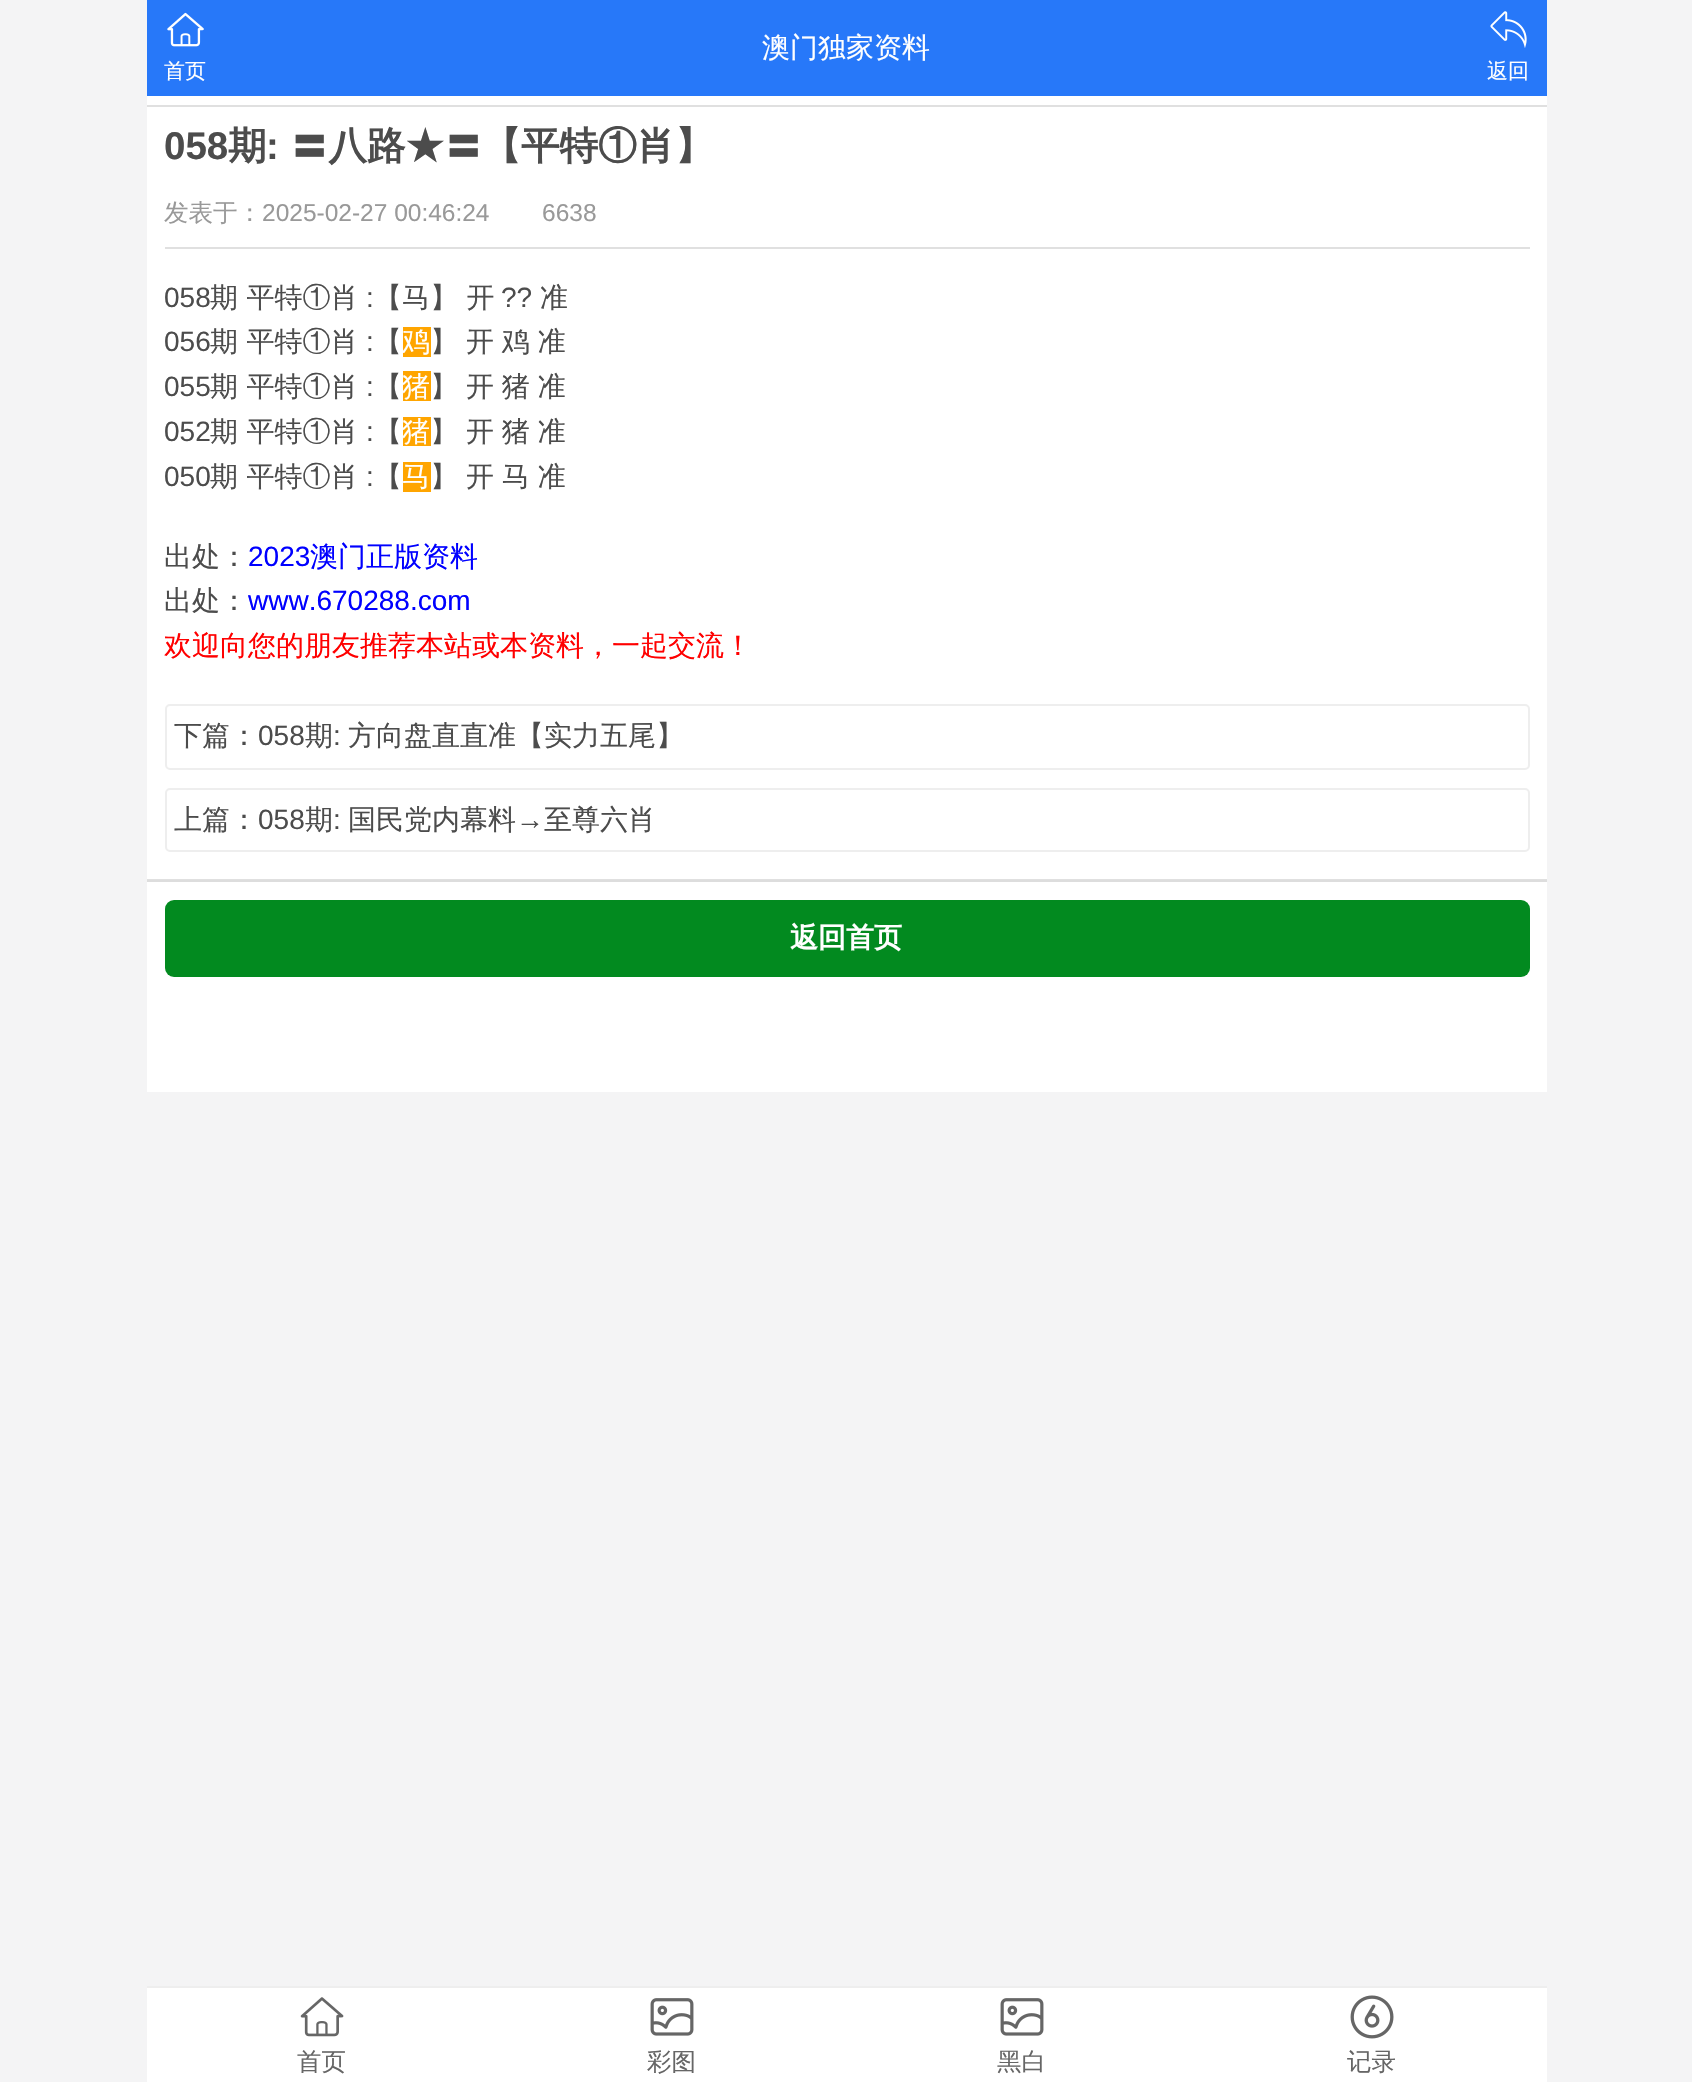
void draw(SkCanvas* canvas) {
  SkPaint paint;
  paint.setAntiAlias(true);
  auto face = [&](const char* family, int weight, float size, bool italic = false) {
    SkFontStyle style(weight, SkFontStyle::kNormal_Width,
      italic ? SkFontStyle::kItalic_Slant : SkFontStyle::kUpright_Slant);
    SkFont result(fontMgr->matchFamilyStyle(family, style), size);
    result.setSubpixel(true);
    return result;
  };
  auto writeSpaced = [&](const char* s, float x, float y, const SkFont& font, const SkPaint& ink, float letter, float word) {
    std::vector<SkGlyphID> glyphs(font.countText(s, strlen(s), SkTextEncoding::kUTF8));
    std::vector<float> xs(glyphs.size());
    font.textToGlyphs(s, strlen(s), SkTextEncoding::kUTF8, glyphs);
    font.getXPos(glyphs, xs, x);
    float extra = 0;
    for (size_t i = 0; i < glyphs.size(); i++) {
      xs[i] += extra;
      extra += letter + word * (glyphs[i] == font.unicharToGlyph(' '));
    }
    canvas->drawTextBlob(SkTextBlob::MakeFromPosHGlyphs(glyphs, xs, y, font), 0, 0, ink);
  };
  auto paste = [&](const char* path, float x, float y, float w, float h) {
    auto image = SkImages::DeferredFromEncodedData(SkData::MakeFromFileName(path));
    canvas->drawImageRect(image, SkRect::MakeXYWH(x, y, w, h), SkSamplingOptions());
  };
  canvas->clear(0xfff4f4f5);
  paint.setColor(0xffffffff);
  canvas->drawRect(SkRect::MakeXYWH(147, 96, 1400, 996), paint);
  paint.setColor(0xff2778f9);
  canvas->drawRect(SkRect::MakeXYWH(147, 0, 1400, 96), paint);
  paste("img/1.png", 167, 12, 37, 35);
  paste("img/2.png", 1490, 11, 37, 37);
  {
    const struct { float x, y, w, h; SkColor color; } items[] = {
      {147, 105, 1400, 2, 0xffe0e0e0},
      {165, 247, 1365, 2, 0xffe0e0e0},
      {403, 327, 28, 30, 0xffffa500},
      {403, 371, 28, 30, 0xffffa500},
      {403, 417, 28, 29, 0xffffa500},
      {403, 462, 28, 30, 0xffffa500},
    };
    for (auto [x, y, w, h, color] : items) {
      paint.setColor(color);
      canvas->drawRect(SkRect::MakeXYWH(x, y, w, h), paint);
    }
  }
  paint.setStroke(true);
  paint.setStrokeWidth(2);
  paint.setColor(0xffeeeeee);
  canvas->drawRoundRect(SkRect::MakeXYWH(166, 705, 1363, 64), 4, 4, paint);
  canvas->drawRoundRect(SkRect::MakeXYWH(166, 789, 1363, 62), 4, 4, paint);
  paint.setStroke(false);
  paint.setColor(0xffe0e0e0);
  canvas->drawRect(SkRect::MakeXYWH(147, 879, 1400, 1), paint);
  paint.setColor(0xffdddddd);
  canvas->drawRect(SkRect::MakeXYWH(147, 880, 1400, 2), paint);
  paint.setColor(0xff028a1f);
  canvas->drawRoundRect(SkRect::MakeXYWH(165, 900, 1365, 77), 9, 9, paint);
  paint.setColor(0xffffffff);
  canvas->drawRect(SkRect::MakeXYWH(147, 1988, 1400, 94), paint);
  paint.setColor(0xffeeeeee);
  canvas->drawRect(SkRect::MakeXYWH(147, 1986, 1400, 2), paint);
  paste("img/3.png", 300, 1997, 44, 40);
  paste("img/4.png", 650, 1998, 44, 38);
  paste("img/4.png", 1000, 1998, 44, 38);
  paste("img/5.png", 1350, 1995, 44, 44);
  auto f0 = face("WenQuanYi Zen Hei", 500, 28);
  paint.setColor(0xffffffff);
  canvas->drawString("澳门独家资料", 762, 57, f0, paint);
  auto f1 = face("WenQuanYi Zen Hei", 500, 21);
  canvas->drawString("首页", 164, 78, f1, paint);
  canvas->drawString("返回", 1487, 78, f1, paint);
  auto f2 = face("Liberation Sans", 700, 38.5f);
  paint.setColor(0xff4c4c4c);
  canvas->drawString("058", 164, 159, f2, paint);
  auto f3 = face("WenQuanYi Zen Hei", 700, 38.5f);
  canvas->drawString("期", 228, 159, f3, paint);
  canvas->drawString(":", 266, 159, f2, paint);
  canvas->drawString("〓八路★〓【平特①肖】", 290, 159, f3, paint);
  auto f4 = face("WenQuanYi Zen Hei", 500, 24.5f);
  paint.setColor(0xff999999);
  canvas->drawString("发表于：", 164, 221, f4, paint);
  auto f5 = face("Liberation Sans", 400, 24.5f);
  canvas->drawString("2025-02-27 00:46:24", 262, 221, f5, paint);
  canvas->drawString("6638", 542, 221, f5, paint);
  auto f6 = face("Liberation Sans", 400, 28);
  paint.setColor(0xff4c4c4c);
  canvas->drawString("058", 164, 307, f6, paint);
  canvas->drawString("期 平特①肖", 210, 307, f0, paint);
  canvas->drawString(":", 366, 307, f6, paint);
  canvas->drawString("【马】 开", 374, 307, f0, paint);
  canvas->drawString("?\077", 501, 307, f6, paint);
  canvas->drawString("准", 540, 307, f0, paint);
  canvas->drawString("056", 164, 351, f6, paint);
  canvas->drawString("期 平特①肖", 210, 351, f0, paint);
  canvas->drawString(":", 366, 351, f6, paint);
  canvas->drawString("【", 374, 351, f0, paint);
  paint.setColor(0xffffffff);
  canvas->drawString("鸡", 402, 351, f0, paint);
  paint.setColor(0xff4c4c4c);
  writeSpaced("】 开 鸡 准", 430, 351, f0, paint, 0, -0.5f);
  canvas->drawString("055", 164, 396, f6, paint);
  canvas->drawString("期 平特①肖", 210, 396, f0, paint);
  canvas->drawString(":", 366, 396, f6, paint);
  canvas->drawString("【", 374, 396, f0, paint);
  paint.setColor(0xffffffff);
  canvas->drawString("猪", 402, 396, f0, paint);
  paint.setColor(0xff4c4c4c);
  writeSpaced("】 开 猪 准", 430, 396, f0, paint, 0, -0.5f);
  canvas->drawString("052", 164, 441, f6, paint);
  canvas->drawString("期 平特①肖", 210, 441, f0, paint);
  canvas->drawString(":", 366, 441, f6, paint);
  canvas->drawString("【", 374, 441, f0, paint);
  paint.setColor(0xffffffff);
  canvas->drawString("猪", 402, 441, f0, paint);
  paint.setColor(0xff4c4c4c);
  writeSpaced("】 开 猪 准", 430, 441, f0, paint, 0, -0.5f);
  canvas->drawString("050", 164, 486, f6, paint);
  canvas->drawString("期 平特①肖", 210, 486, f0, paint);
  canvas->drawString(":", 366, 486, f6, paint);
  canvas->drawString("【", 374, 486, f0, paint);
  paint.setColor(0xffffffff);
  canvas->drawString("马", 402, 486, f0, paint);
  paint.setColor(0xff4c4c4c);
  writeSpaced("】 开 马 准", 430, 486, f0, paint, 0, -0.5f);
  canvas->drawString("出处：", 164, 566, f0, paint);
  paint.setColor(0xff0000ff);
  canvas->drawString("2023", 248, 566, f6, paint);
  canvas->drawString("澳门正版资料", 310, 566, f0, paint);
  paint.setColor(0xff4c4c4c);
  canvas->drawString("出处：", 164, 610, f0, paint);
  paint.setColor(0xff0000ff);
  canvas->drawString("www.670288.com", 248, 610, f6, paint);
  paint.setColor(0xffff0000);
  canvas->drawString("欢迎向您的朋友推荐本站或本资料，一起交流！", 164, 655, f0, paint);
  paint.setColor(0xff4c4c4c);
  canvas->drawString("下篇：", 174, 745, f0, paint);
  canvas->drawString("058", 258, 745, f6, paint);
  canvas->drawString("期", 305, 745, f0, paint);
  canvas->drawString(":", 333, 745, f6, paint);
  canvas->drawString("方向盘直直准【实力五尾】", 348, 745, f0, paint);
  canvas->drawString("上篇：", 174, 829, f0, paint);
  canvas->drawString("058", 258, 829, f6, paint);
  canvas->drawString("期", 305, 829, f0, paint);
  canvas->drawString(":", 333, 829, f6, paint);
  canvas->drawString("国民党内幕料", 348, 829, f0, paint);
  canvas->drawString("→", 516, 829, f6, paint);
  canvas->drawString("至尊六肖", 544, 829, f0, paint);
  auto f7 = face("WenQuanYi Zen Hei", 700, 28);
  paint.setColor(0xffffffff);
  canvas->drawString("返回首页", 790, 947, f7, paint);
  paint.setColor(0xff666666);
  {
    const struct { const char* s; float x, y; } items[] = {
      {"首页", 297, 2070},
      {"彩图", 647, 2070},
      {"黑白", 997, 2070},
      {"记录", 1347, 2070},
    };
    for (auto [s, x, y] : items) {
      canvas->drawString(s, x, y, f4, paint);
    }
  }
}
